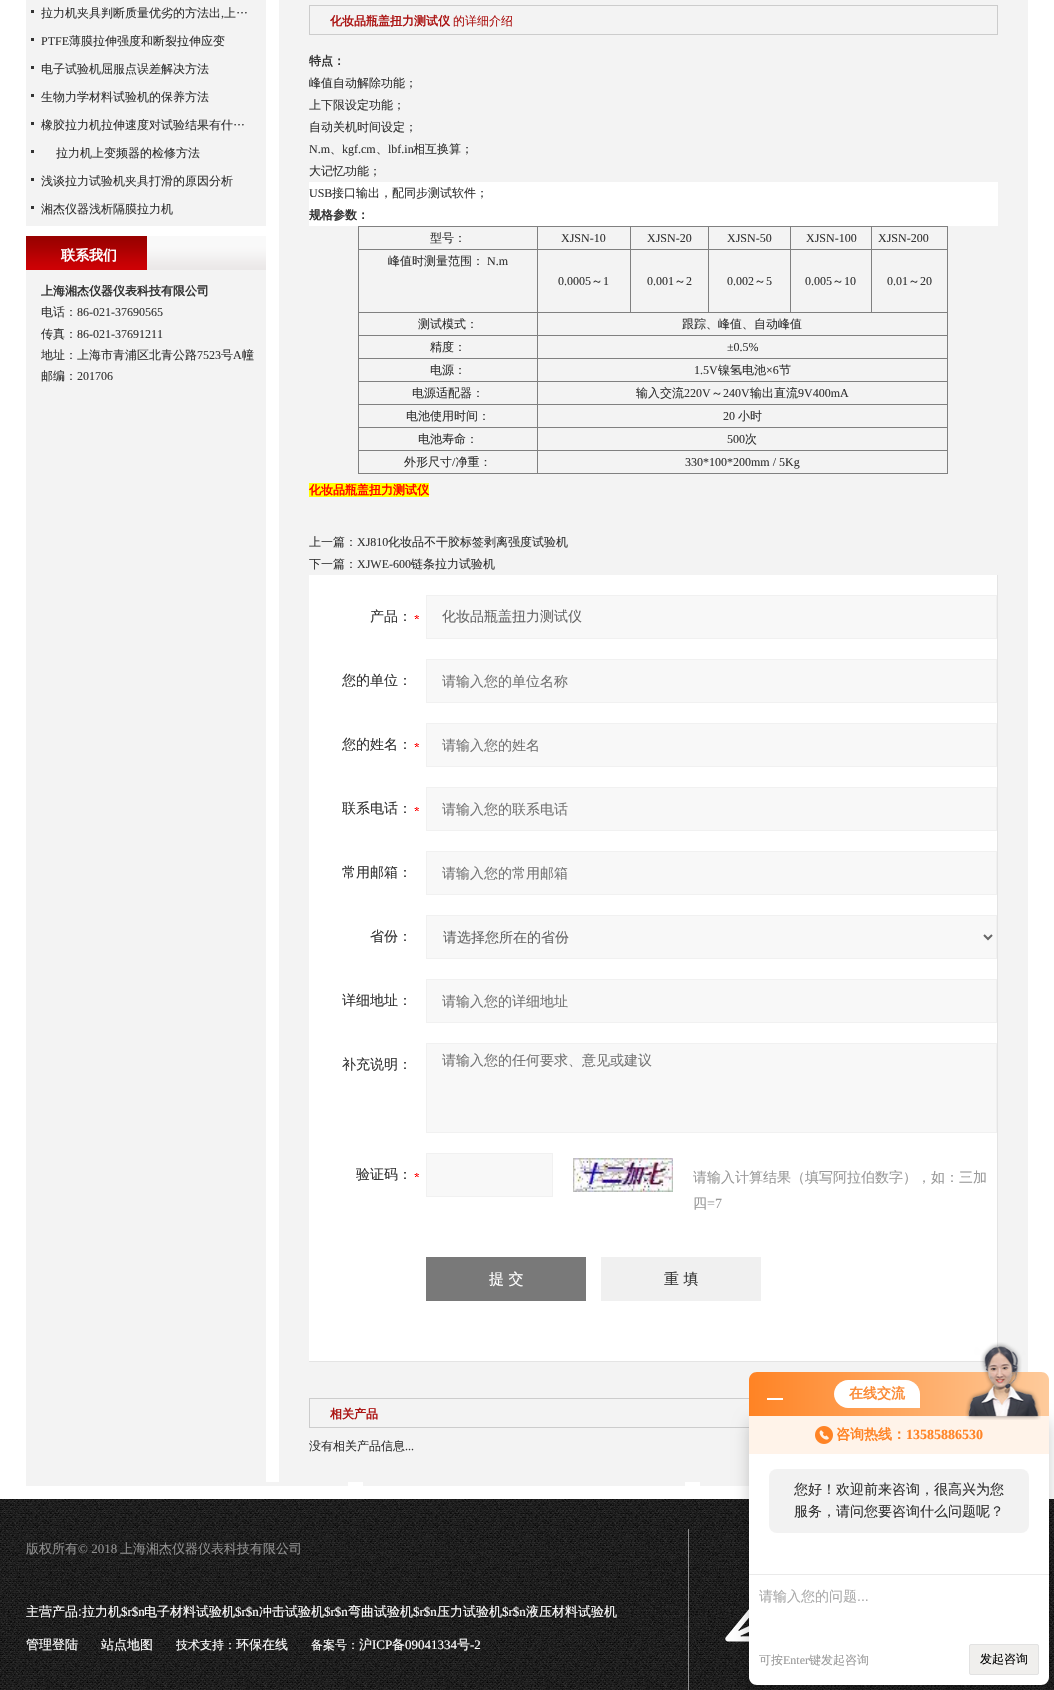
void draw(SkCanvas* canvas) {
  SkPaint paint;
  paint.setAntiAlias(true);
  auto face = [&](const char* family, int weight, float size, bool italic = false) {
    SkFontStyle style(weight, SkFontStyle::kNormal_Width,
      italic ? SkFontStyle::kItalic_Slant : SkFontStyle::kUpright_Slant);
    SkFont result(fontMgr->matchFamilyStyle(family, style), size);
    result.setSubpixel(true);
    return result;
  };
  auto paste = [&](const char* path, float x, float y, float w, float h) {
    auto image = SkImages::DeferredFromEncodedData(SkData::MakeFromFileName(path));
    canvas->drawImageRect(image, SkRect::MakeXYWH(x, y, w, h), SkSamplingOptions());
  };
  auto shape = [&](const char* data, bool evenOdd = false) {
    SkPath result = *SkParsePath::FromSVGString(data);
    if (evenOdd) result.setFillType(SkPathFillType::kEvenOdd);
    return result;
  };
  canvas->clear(0xffffffff);
  {
    const struct { float x, y, w, h; SkColor color; } items[] = {
      {26, 0, 240, 1482, 0xfff3f3f3},
      {31, 10, 3, 3, 0xff333333},
      {31, 38, 3, 3, 0xff333333},
      {31, 66, 3, 3, 0xff333333},
      {31, 94, 3, 3, 0xff333333},
      {31, 122, 3, 3, 0xff333333},
      {31, 150, 3, 3, 0xff333333},
      {31, 178, 3, 3, 0xff333333},
      {31, 206, 3, 3, 0xff333333},
      {26, 226, 240, 5, 0xffffffff},
    };
    for (auto [x, y, w, h, color] : items) {
      paint.setColor(color);
      canvas->drawRect(SkRect::MakeXYWH(x, y, w, h), paint);
    }
  }
  paste("img/1.png", 26, 231, 240, 39);
  paint.setColor(0xfff3f3f3);
  canvas->drawRect(SkRect::MakeXYWH(279, 0, 749, 1482), paint);
  paint.setStroke(true);
  paint.setStrokeWidth(1);
  paint.setColor(0xffcccccc);
  canvas->drawRect(SkRect::MakeXYWH(309.5f, 5.5f, 688, 29), paint);
  paint.setStroke(false);
  {
    const struct { float x, y, w, h; SkColor color; } items[] = {
      {309, 182, 689, 44, 0xffffffff},
      {358, 226, 590, 1, 0xff808080},
      {947, 226, 1, 248, 0xff808080},
      {358, 473, 590, 1, 0xff808080},
      {358, 226, 1, 248, 0xff808080},
      {871, 249, 77, 1, 0xff808080},
      {537, 312, 411, 1, 0xff808080},
      {871, 249, 1, 64, 0xff808080},
      {790, 249, 82, 1, 0xff808080},
      {790, 249, 1, 64, 0xff808080},
      {708, 249, 83, 1, 0xff808080},
      {708, 249, 1, 64, 0xff808080},
      {630, 249, 79, 1, 0xff808080},
      {630, 249, 1, 64, 0xff808080},
      {537, 249, 94, 1, 0xff808080},
      {537, 335, 411, 1, 0xff808080},
      {537, 358, 411, 1, 0xff808080},
      {537, 381, 411, 1, 0xff808080},
      {537, 404, 411, 1, 0xff808080},
      {537, 427, 411, 1, 0xff808080},
      {537, 450, 411, 1, 0xff808080},
      {537, 450, 1, 24, 0xff808080},
      {358, 450, 180, 1, 0xff808080},
      {537, 427, 1, 24, 0xff808080},
      {358, 427, 180, 1, 0xff808080},
      {537, 404, 1, 24, 0xff808080},
      {358, 404, 180, 1, 0xff808080},
      {537, 381, 1, 24, 0xff808080},
      {358, 381, 180, 1, 0xff808080},
      {537, 358, 1, 24, 0xff808080},
      {358, 358, 180, 1, 0xff808080},
      {537, 335, 1, 24, 0xff808080},
      {358, 335, 180, 1, 0xff808080},
      {537, 312, 1, 24, 0xff808080},
      {358, 312, 180, 1, 0xff808080},
      {537, 249, 1, 64, 0xff808080},
      {358, 249, 180, 1, 0xff808080},
      {537, 226, 1, 24, 0xff808080},
      {630, 226, 1, 24, 0xff808080},
      {708, 226, 1, 24, 0xff808080},
      {790, 226, 1, 24, 0xff808080},
      {871, 226, 1, 24, 0xff808080},
      {309, 483, 120, 14, 0xffffff00},
      {309, 575, 688, 786, 0xffffffff},
      {997, 575, 1, 773, 0xffe4e4e4},
      {309, 1361, 677, 1, 0xffe4e4e4},
    };
    for (auto [x, y, w, h, color] : items) {
      paint.setColor(color);
      canvas->drawRect(SkRect::MakeXYWH(x, y, w, h), paint);
    }
  }
  paste("img/2.png", 414, 615, 5, 4);
  paint.setColor(0xfff8f8f8);
  canvas->drawRect(SkRect::MakeXYWH(426.5f, 595.5f, 570, 43), paint);
  paint.setStroke(true);
  paint.setColor(0xfff1f1f1);
  canvas->drawRect(SkRect::MakeXYWH(426.5f, 595.5f, 570, 43), paint);
  paint.setStroke(false);
  paint.setColor(0xfff8f8f8);
  canvas->drawRect(SkRect::MakeXYWH(426.5f, 659.5f, 570, 43), paint);
  paint.setStroke(true);
  paint.setColor(0xfff1f1f1);
  canvas->drawRect(SkRect::MakeXYWH(426.5f, 659.5f, 570, 43), paint);
  paste("img/2.png", 414, 743, 5, 4);
  paint.setStroke(false);
  paint.setColor(0xfff8f8f8);
  canvas->drawRect(SkRect::MakeXYWH(426.5f, 723.5f, 570, 43), paint);
  paint.setStroke(true);
  paint.setColor(0xfff1f1f1);
  canvas->drawRect(SkRect::MakeXYWH(426.5f, 723.5f, 570, 43), paint);
  paste("img/2.png", 414, 807, 5, 4);
  paint.setStroke(false);
  paint.setColor(0xfff8f8f8);
  canvas->drawRect(SkRect::MakeXYWH(426.5f, 787.5f, 570, 43), paint);
  paint.setStroke(true);
  paint.setColor(0xfff1f1f1);
  canvas->drawRect(SkRect::MakeXYWH(426.5f, 787.5f, 570, 43), paint);
  paint.setStroke(false);
  paint.setColor(0xfff8f8f8);
  canvas->drawRect(SkRect::MakeXYWH(426.5f, 851.5f, 570, 43), paint);
  paint.setStroke(true);
  paint.setColor(0xfff1f1f1);
  canvas->drawRect(SkRect::MakeXYWH(426.5f, 851.5f, 570, 43), paint);
  paint.setStroke(false);
  paint.setColor(0xfff8f8f8);
  canvas->drawRect(SkRect::MakeXYWH(426.5f, 915.5f, 570, 43), paint);
  paint.setStroke(true);
  paint.setColor(0xfff1f1f1);
  canvas->drawRect(SkRect::MakeXYWH(426.5f, 915.5f, 570, 43), paint);
  paint.setStrokeWidth(2);
  paint.setColor(0xff666666);
  canvas->drawPath(shape("M984 935L988 939L992 935"), paint);
  paint.setStroke(false);
  paint.setColor(0xfff8f8f8);
  canvas->drawRect(SkRect::MakeXYWH(426.5f, 979.5f, 570, 43), paint);
  paint.setStroke(true);
  paint.setStrokeWidth(1);
  paint.setColor(0xfff1f1f1);
  canvas->drawRect(SkRect::MakeXYWH(426.5f, 979.5f, 570, 43), paint);
  paint.setStroke(false);
  paint.setColor(0xfff8f8f8);
  canvas->drawRect(SkRect::MakeXYWH(426.5f, 1043.5f, 570, 89), paint);
  paint.setStroke(true);
  paint.setColor(0xfff1f1f1);
  canvas->drawRect(SkRect::MakeXYWH(426.5f, 1043.5f, 570, 89), paint);
  paste("img/2.png", 414, 1173, 5, 4);
  paint.setStroke(false);
  paint.setColor(0xfff8f8f8);
  canvas->drawRect(SkRect::MakeXYWH(426.5f, 1153.5f, 126, 43), paint);
  paint.setStroke(true);
  paint.setColor(0xfff1f1f1);
  canvas->drawRect(SkRect::MakeXYWH(426.5f, 1153.5f, 126, 43), paint);
  paste("img/3.png", 573, 1158, 100, 34);
  paint.setStroke(false);
  paint.setColor(0xff797979);
  canvas->drawRect(SkRect::MakeXYWH(426, 1257, 160, 44), paint);
  paint.setColor(0xfff0f0f0);
  canvas->drawRect(SkRect::MakeXYWH(601, 1257, 160, 44), paint);
  paint.setStroke(true);
  paint.setColor(0xffcccccc);
  canvas->drawRect(SkRect::MakeXYWH(309.5f, 1398.5f, 688, 29), paint);
  paste("img/4.png", 26, 1482, 723, 4);
  paste("img/5.png", 0, 1499, 1054, 191);
  paint.setStroke(false);
  paint.setColor(0x80ffffff);
  canvas->drawRect(SkRect::MakeXYWH(688, 1529, 1, 161), paint);
  paste("img/6.png", 725, 1609, 24, 33);
  paint.setColor(0x33000000);
  paint.setMaskFilter(SkMaskFilter::MakeBlur(kNormal_SkBlurStyle, 8));
  canvas->drawRoundRect(SkRect::MakeXYWH(749, 1420, 300, 269), 8, 8, paint);
  paint.setMaskFilter(nullptr);
  {
    const SkColor colors[] = {0xffff8324, 0xfffecb9c};
    const float stops[] = {0, 1};
    const SkPoint ends[] = {{749, 1394}, {1049, 1394}};
    paint.setShader(SkGradientShader::MakeLinear(ends, colors, stops, 2, SkTileMode::kClamp));
    paint.setAlpha(255);
  }
  canvas->drawPath(shape("M757 1372H1041C1045.5 1372 1049 1375.5 1049 1380V1416H749V1380C749 1375.5 752.5 1372 757 1372Z"), paint);
  paint.setShader(nullptr);
  paint.setColor(0xffffffff);
  canvas->drawRect(SkRect::MakeXYWH(767, 1398, 16, 2), paint);
  canvas->drawPath(shape("M848 1380H906C913.5 1380 920 1386.5 920 1394V1408H848C840.5 1408 834 1401.5 834 1394C834 1386.5 840.5 1380 848 1380Z"), paint);
  canvas->drawPath(shape("M749 1416H1049V1677C1049 1681.5 1045.5 1685 1041 1685H757C752.5 1685 749 1681.5 749 1677Z"), paint);
  paint.setColor(0xfffff3e9);
  canvas->drawRect(SkRect::MakeXYWH(749, 1416, 300, 38), paint);
  paste("img/7.png", 965, 1342, 76, 78);
  paste("img/8.png", 815, 1426, 18, 18);
  paint.setColor(0xfff2f2f2);
  canvas->drawRoundRect(SkRect::MakeXYWH(769, 1469, 260, 64), 8, 8, paint);
  paint.setColor(0xffeaeaea);
  canvas->drawRect(SkRect::MakeXYWH(749, 1574, 300, 1), paint);
  paint.setColor(0xfff0efed);
  canvas->drawRoundRect(SkRect::MakeXYWH(969.5f, 1644.5f, 69, 30), 1.5f, 1.5f, paint);
  paint.setStroke(true);
  paint.setColor(0xffe2e2e2);
  canvas->drawRoundRect(SkRect::MakeXYWH(969.5f, 1644.5f, 69, 30), 1.5f, 1.5f, paint);
  auto f0 = face("WenQuanYi Zen Hei", 500, 12);
  paint.setStroke(false);
  paint.setColor(0xff333333);
  canvas->drawString("拉力机夹具判断质量优劣的方法出", 41, 17, f0, paint);
  auto f1 = face("Liberation Serif", 400, 12);
  canvas->drawString(",", 221, 17, f1, paint);
  canvas->drawString("上…", 224, 17, f0, paint);
  canvas->drawString("PTFE", 41, 45, f1, paint);
  {
    const struct { const char* s; float x, y; } items[] = {
      {"薄膜拉伸强度和断裂拉伸应变", 69, 45},
      {"电子试验机屈服点误差解决方法", 41, 73},
      {"生物力学材料试验机的保养方法", 41, 101},
      {"橡胶拉力机拉伸速度对试验结果有什…", 41, 129},
      {"拉力机上变频器的检修方法", 56, 157},
      {"浅谈拉力试验机夹具打滑的原因分析", 41, 185},
      {"湘杰仪器浅析隔膜拉力机", 41, 213},
    };
    for (auto [s, x, y] : items) {
      canvas->drawString(s, x, y, f0, paint);
    }
  }
  auto f2 = face("WenQuanYi Zen Hei", 700, 14);
  paint.setColor(0xffffffff);
  canvas->drawString("联系我们", 61, 260, f2, paint);
  auto f3 = face("WenQuanYi Zen Hei", 700, 12);
  paint.setColor(0xff333333);
  canvas->drawString("上海湘杰仪器仪表科技有限公司", 41, 295, f3, paint);
  canvas->drawString("电话：", 41, 316, f0, paint);
  canvas->drawString("86-021-37690565", 77, 316, f1, paint);
  canvas->drawString("传真：", 41, 338, f0, paint);
  canvas->drawString("86-021-37691211", 77, 338, f1, paint);
  canvas->drawString("地址：上海市青浦区北青公路", 41, 359, f0, paint);
  canvas->drawString("7523", 197, 359, f1, paint);
  canvas->drawString("号", 221, 359, f0, paint);
  canvas->drawString("A", 233, 359, f1, paint);
  canvas->drawString("幢", 242, 359, f0, paint);
  canvas->drawString("邮编：", 41, 380, f0, paint);
  canvas->drawString("201706", 77, 380, f1, paint);
  paint.setColor(0xffac1514);
  canvas->drawString("化妆品瓶盖扭力测试仪", 330, 25, f3, paint);
  canvas->drawString("的详细介绍", 453, 25, f0, paint);
  paint.setColor(0xff333333);
  canvas->drawString("特点：", 309, 65, f3, paint);
  {
    const struct { const char* s; float x, y; } items[] = {
      {"峰值自动解除功能；", 309, 87},
      {"上下限设定功能；", 309, 109},
      {"自动关机时间设定；", 309, 131},
    };
    for (auto [s, x, y] : items) {
      canvas->drawString(s, x, y, f0, paint);
    }
  }
  canvas->drawString("N.m", 309, 153, f1, paint);
  canvas->drawString("、", 330, 153, f0, paint);
  canvas->drawString("kgf.cm", 342, 153, f1, paint);
  canvas->drawString("、", 376, 153, f0, paint);
  canvas->drawString("lbf.in", 388, 153, f1, paint);
  canvas->drawString("相互换算；", 413, 153, f0, paint);
  canvas->drawString("大记忆功能；", 309, 175, f0, paint);
  canvas->drawString("USB", 309, 197, f1, paint);
  canvas->drawString("接口输出，配同步测试软件；", 332, 197, f0, paint);
  canvas->drawString("规格参数：", 309, 219, f3, paint);
  canvas->drawString("型号：", 430, 242, f0, paint);
  {
    const struct { const char* s; float x, y; } items[] = {
      {"XJSN-10", 561, 242},
      {"XJSN-20", 647, 242},
      {"XJSN-50", 727, 242},
      {"XJSN-100", 806, 242},
      {"XJSN-200", 878, 242},
    };
    for (auto [s, x, y] : items) {
      canvas->drawString(s, x, y, f1, paint);
    }
  }
  canvas->drawString("峰值时测量范围：", 388, 265, f0, paint);
  canvas->drawString("N.m", 487, 265, f1, paint);
  canvas->drawString("0.0005", 558, 285, f1, paint);
  canvas->drawString("～", 591, 285, f0, paint);
  canvas->drawString("1", 603, 285, f1, paint);
  canvas->drawString("0.001", 647, 285, f1, paint);
  canvas->drawString("～", 674, 285, f0, paint);
  canvas->drawString("2", 686, 285, f1, paint);
  canvas->drawString("0.002", 727, 285, f1, paint);
  canvas->drawString("～", 754, 285, f0, paint);
  canvas->drawString("5", 766, 285, f1, paint);
  canvas->drawString("0.005", 805, 285, f1, paint);
  canvas->drawString("～", 832, 285, f0, paint);
  canvas->drawString("10", 844, 285, f1, paint);
  canvas->drawString("0.01", 887, 285, f1, paint);
  canvas->drawString("～", 908, 285, f0, paint);
  canvas->drawString("20", 920, 285, f1, paint);
  {
    const struct { const char* s; float x, y; } items[] = {
      {"测试模式：", 418, 328},
      {"跟踪、峰值、自动峰值", 682, 328},
      {"精度：", 430, 351},
    };
    for (auto [s, x, y] : items) {
      canvas->drawString(s, x, y, f0, paint);
    }
  }
  canvas->drawString("±0.5%", 727, 351, f1, paint);
  canvas->drawString("电源：", 430, 374, f0, paint);
  canvas->drawString("1.5V", 694, 374, f1, paint);
  canvas->drawString("镍氢电池", 718, 374, f0, paint);
  canvas->drawString("×6", 766, 374, f1, paint);
  {
    const struct { const char* s; float x, y; } items[] = {
      {"节", 779, 374},
      {"电源适配器：", 412, 397},
      {"输入交流", 636, 397},
    };
    for (auto [s, x, y] : items) {
      canvas->drawString(s, x, y, f0, paint);
    }
  }
  canvas->drawString("220V", 684, 397, f1, paint);
  canvas->drawString("～", 711, 397, f0, paint);
  canvas->drawString("240V", 723, 397, f1, paint);
  canvas->drawString("输出直流", 750, 397, f0, paint);
  canvas->drawString("9V400mA", 798, 397, f1, paint);
  canvas->drawString("电池使用时间：", 406, 420, f0, paint);
  canvas->drawString("20", 723, 420, f1, paint);
  canvas->drawString("小时", 738, 420, f0, paint);
  canvas->drawString("电池寿命：", 418, 443, f0, paint);
  canvas->drawString("500", 727, 443, f1, paint);
  canvas->drawString("次", 745, 443, f0, paint);
  canvas->drawString("外形尺寸 净重：", 404, 466, f0, paint);
  canvas->drawString("/", 452, 466, f1, paint);
  canvas->drawString("330*100*200mm / 5Kg", 685, 466, f1, paint);
  paint.setColor(0xffff0000);
  canvas->drawString("化妆品瓶盖扭力测试仪", 309, 494, f3, paint);
  paint.setColor(0xff333333);
  canvas->drawString("上一篇：", 309, 546, f0, paint);
  canvas->drawString("XJ810", 357, 546, f1, paint);
  canvas->drawString("化妆品不干胶标签剥离强度试验机", 388, 546, f0, paint);
  canvas->drawString("下一篇：", 309, 568, f0, paint);
  canvas->drawString("XJWE-600", 357, 568, f1, paint);
  canvas->drawString("链条拉力试验机", 411, 568, f0, paint);
  auto f4 = face("WenQuanYi Zen Hei", 500, 14);
  canvas->drawString("产品：", 370, 621, f4, paint);
  paint.setColor(0xff666666);
  canvas->drawString("化妆品瓶盖扭力测试仪", 442, 621, f4, paint);
  paint.setColor(0xff333333);
  canvas->drawString("您的单位：", 342, 685, f4, paint);
  paint.setColor(0xff757575);
  canvas->drawString("请输入您的单位名称", 442, 686, f4, paint);
  paint.setColor(0xff333333);
  canvas->drawString("您的姓名：", 342, 749, f4, paint);
  paint.setColor(0xff757575);
  canvas->drawString("请输入您的姓名", 442, 750, f4, paint);
  paint.setColor(0xff333333);
  canvas->drawString("联系电话：", 342, 813, f4, paint);
  paint.setColor(0xff757575);
  canvas->drawString("请输入您的联系电话", 442, 814, f4, paint);
  paint.setColor(0xff333333);
  canvas->drawString("常用邮箱：", 342, 877, f4, paint);
  paint.setColor(0xff757575);
  canvas->drawString("请输入您的常用邮箱", 442, 878, f4, paint);
  paint.setColor(0xff333333);
  canvas->drawString("省份：", 370, 941, f4, paint);
  paint.setColor(0xff666666);
  canvas->drawString("请选择您所在的省份", 443, 942, f4, paint);
  paint.setColor(0xff333333);
  canvas->drawString("详细地址：", 342, 1005, f4, paint);
  paint.setColor(0xff757575);
  canvas->drawString("请输入您的详细地址", 442, 1006, f4, paint);
  paint.setColor(0xff333333);
  canvas->drawString("补充说明：", 342, 1069, f4, paint);
  paint.setColor(0xff757575);
  canvas->drawString("请输入您的任何要求、意见或建议", 442, 1065, f4, paint);
  paint.setColor(0xff333333);
  canvas->drawString("验证码：", 356, 1179, f4, paint);
  paint.setColor(0xff999999);
  canvas->drawString("请输入计算结果（填写阿拉伯数字），如：三加", 693, 1182, f4, paint);
  canvas->drawString("四", 693, 1208, f4, paint);
  auto f5 = face("Liberation Serif", 400, 14);
  canvas->drawString("=7", 707, 1208, f5, paint);
  auto f6 = face("WenQuanYi Zen Hei", 500, 15);
  paint.setColor(0xffffffff);
  canvas->drawString("提 交", 489, 1284, f6, paint);
  paint.setColor(0xff333333);
  canvas->drawString("重 填", 664, 1284, f6, paint);
  paint.setColor(0xffac1514);
  canvas->drawString("相关产品", 330, 1418, f3, paint);
  paint.setColor(0xff333333);
  canvas->drawString("没有相关产品信息", 309, 1450, f0, paint);
  canvas->drawString("...", 405, 1450, f1, paint);
  auto f7 = face("WenQuanYi Zen Hei", 500, 13);
  paint.setColor(0xff8f8f8f);
  canvas->drawString("版权所有", 26, 1553, f7, paint);
  auto f8 = face("Liberation Serif", 400, 13);
  canvas->drawString("© 2018", 78, 1553, f8, paint);
  canvas->drawString("上海湘杰仪器仪表科技有限公司", 120, 1553, f7, paint);
  paint.setColor(0xffffffff);
  canvas->drawString("主营产品 拉力机", 26, 1616, f7, paint);
  canvas->drawString("$r$n", 121, 1616, f8, paint);
  canvas->drawString("电子材料试验机", 144, 1616, f7, paint);
  canvas->drawString("$r$n", 235, 1616, f8, paint);
  canvas->drawString("冲击试验机", 259, 1616, f7, paint);
  canvas->drawString("$r$n", 324, 1616, f8, paint);
  canvas->drawString("弯曲试验机", 348, 1616, f7, paint);
  canvas->drawString("$r$n", 413, 1616, f8, paint);
  canvas->drawString("压力试验机", 437, 1616, f7, paint);
  canvas->drawString("$r$n", 502, 1616, f8, paint);
  canvas->drawString("液压材料试验机", 526, 1616, f7, paint);
  auto f9 = face("Liberation Sans", 400, 13);
  canvas->drawString(":", 78, 1616, f9, paint);
  canvas->drawString("管理登陆", 26, 1649, f7, paint);
  canvas->drawString("站点地图", 101, 1649, f7, paint);
  canvas->drawString("技术支持：", 176, 1649, f0, paint);
  canvas->drawString("环保在线", 236, 1649, f7, paint);
  canvas->drawString("备案号：", 311, 1649, f0, paint);
  canvas->drawString("沪", 359, 1649, f7, paint);
  canvas->drawString("ICP", 372, 1649, f8, paint);
  canvas->drawString("备", 392, 1649, f7, paint);
  canvas->drawString("09041334", 405, 1649, f8, paint);
  canvas->drawString("号", 457, 1649, f7, paint);
  canvas->drawString("-2", 470, 1649, f8, paint);
  paint.setColor(0xfffb8b36);
  canvas->drawString("在线交流", 849, 1398, f2, paint);
  paint.setColor(0xffff8426);
  canvas->drawString("咨询热线：", 836, 1439, f2, paint);
  auto f10 = face("Liberation Serif", 700, 14);
  canvas->drawString("13585886530", 906, 1439, f10, paint);
  paint.setColor(0xff333333);
  canvas->drawString("您好！欢迎前来咨询，很高兴为您", 794, 1494, f4, paint);
  canvas->drawString("服务，请问您要咨询什么问题呢？", 794, 1516, f4, paint);
  paint.setColor(0xffaaaaaa);
  canvas->drawString("请输入您的问题", 759, 1601, f4, paint);
  auto f11 = face("Liberation Sans", 400, 14);
  canvas->drawString("...", 857, 1601, f11, paint);
  paint.setColor(0xff999999);
  canvas->drawString("可按", 759, 1664, f0, paint);
  canvas->drawString("Enter", 783, 1664, f1, paint);
  canvas->drawString("键发起咨询", 809, 1664, f0, paint);
  paint.setColor(0xff000000);
  canvas->drawString("发起咨询", 980, 1663, f0, paint);
}
